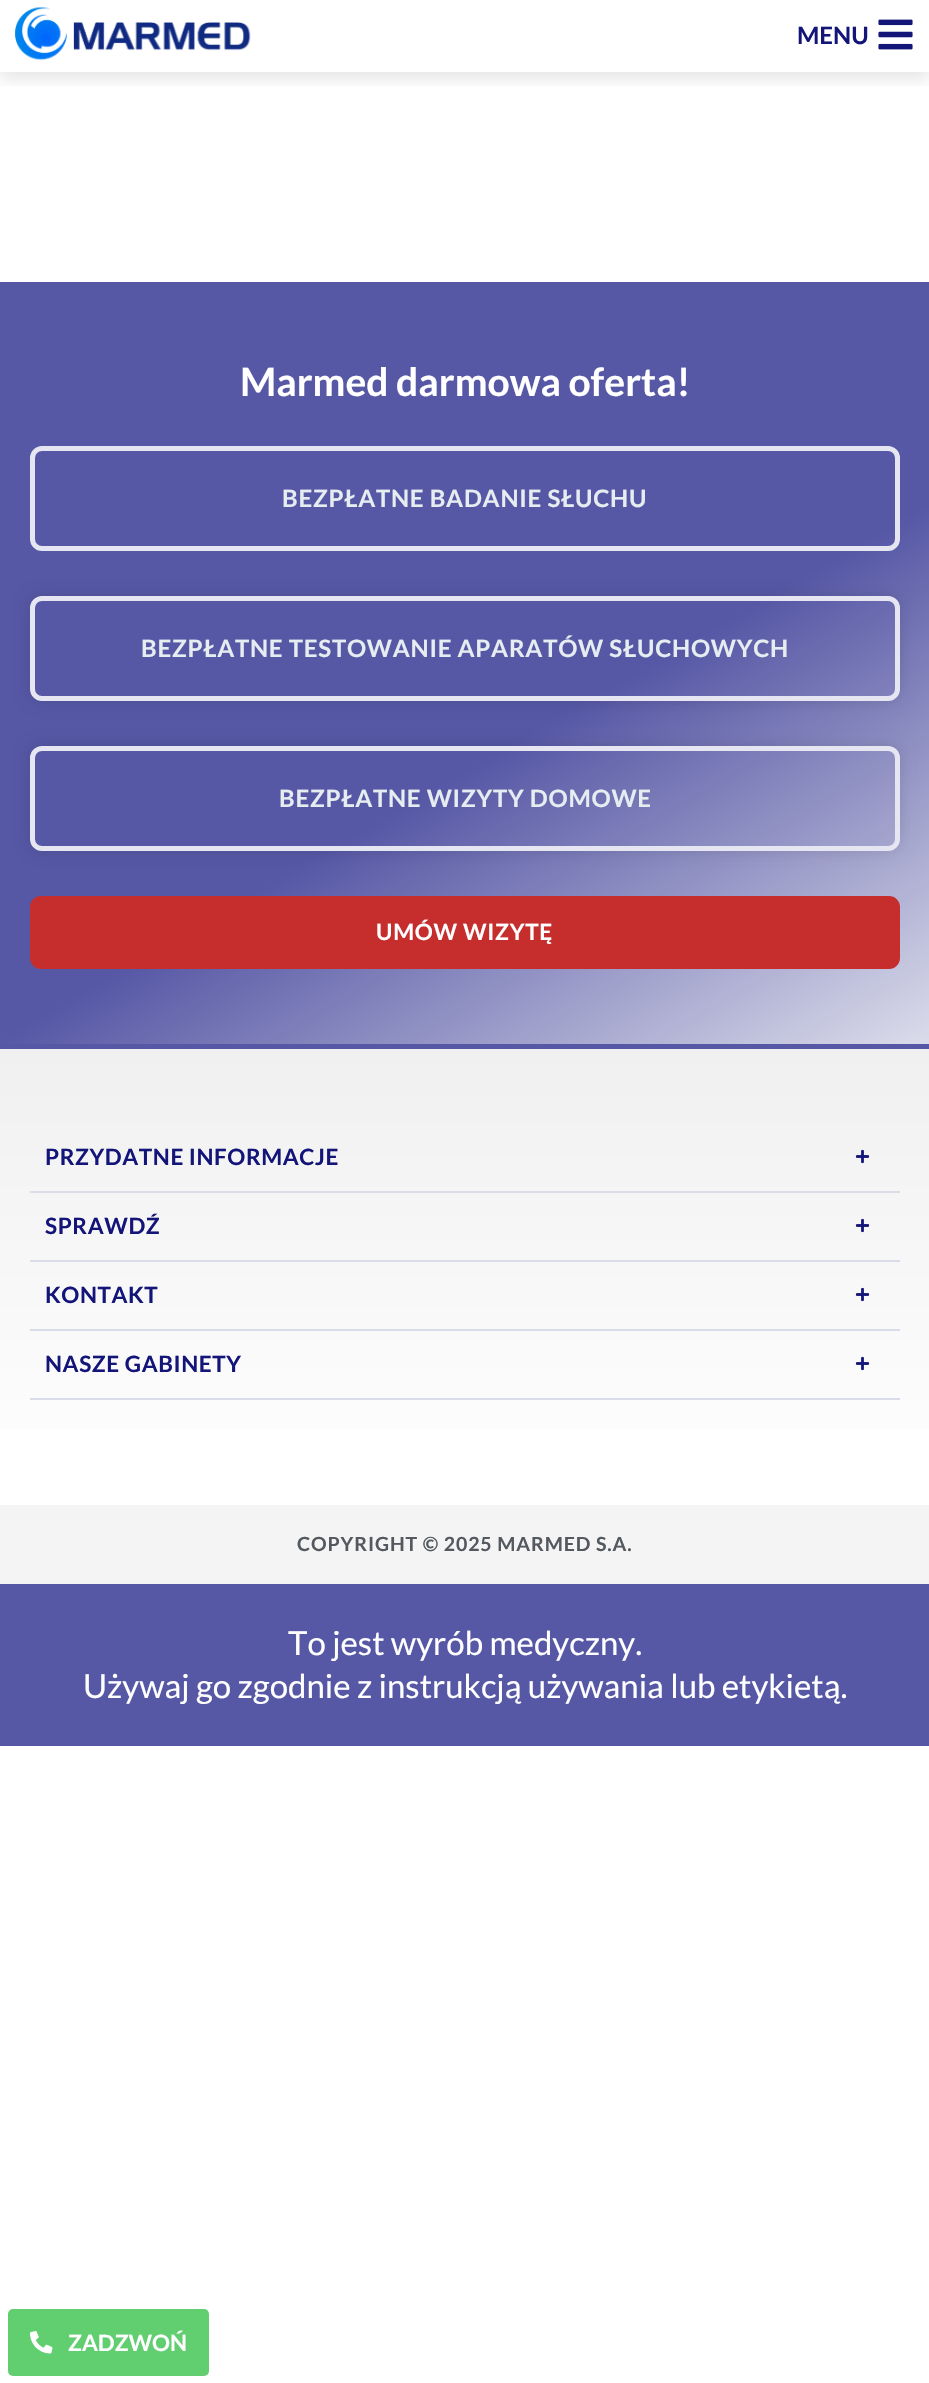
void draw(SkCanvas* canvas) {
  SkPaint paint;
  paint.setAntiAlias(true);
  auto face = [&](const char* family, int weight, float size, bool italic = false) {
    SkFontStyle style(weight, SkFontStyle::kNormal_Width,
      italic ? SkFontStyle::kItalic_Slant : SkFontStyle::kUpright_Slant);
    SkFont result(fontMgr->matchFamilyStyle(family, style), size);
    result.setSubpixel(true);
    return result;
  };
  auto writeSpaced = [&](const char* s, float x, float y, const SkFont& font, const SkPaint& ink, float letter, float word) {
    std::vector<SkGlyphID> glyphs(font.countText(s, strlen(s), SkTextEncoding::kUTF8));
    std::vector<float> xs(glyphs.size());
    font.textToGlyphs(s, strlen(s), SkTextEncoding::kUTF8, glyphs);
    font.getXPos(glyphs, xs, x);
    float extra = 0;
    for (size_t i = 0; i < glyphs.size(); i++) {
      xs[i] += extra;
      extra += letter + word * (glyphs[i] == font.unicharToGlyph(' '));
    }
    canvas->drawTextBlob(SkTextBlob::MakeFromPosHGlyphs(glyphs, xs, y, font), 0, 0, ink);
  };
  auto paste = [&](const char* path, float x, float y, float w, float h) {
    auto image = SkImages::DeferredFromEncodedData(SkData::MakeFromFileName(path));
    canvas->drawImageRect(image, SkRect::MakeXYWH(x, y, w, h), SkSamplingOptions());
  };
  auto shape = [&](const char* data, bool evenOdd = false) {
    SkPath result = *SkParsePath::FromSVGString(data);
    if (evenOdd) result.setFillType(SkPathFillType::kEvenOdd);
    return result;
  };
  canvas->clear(0xffffffff);
  canvas->save();
  canvas->clipRect(SkRect::MakeXYWH(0, 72, 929, 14));
  paint.setColor(0x17000000);
  paint.setMaskFilter(SkMaskFilter::MakeBlur(kNormal_SkBlurStyle, 7.5f));
  canvas->drawRect(SkRect::MakeXYWH(0, 8, 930, 72), paint);
  paint.setMaskFilter(nullptr);
  canvas->restore();
  paste("img/1.png", 15, 7, 236, 54);
  paste("img/2.png", 878, 19, 35, 31);
  {
    const SkColor colors[] = {0xff5657a5, 0xffdbdcea};
    const float stops[] = {0.58f, 1};
    const SkPoint ends[] = {{185, 180}, {745, 1151}};
    paint.setShader(SkGradientShader::MakeLinear(ends, colors, stops, 2, SkTileMode::kClamp));
    paint.setAlpha(255);
  }
  canvas->drawRect(SkRect::MakeXYWH(0, 287, 929, 757), paint);
  paint.setShader(nullptr);
  paint.setColor(0xff5657a5);
  canvas->drawRect(SkRect::MakeXYWH(0, 282, 929, 5), paint);
  canvas->drawRect(SkRect::MakeXYWH(0, 1044, 929, 5), paint);
  paint.setStroke(true);
  paint.setStrokeWidth(5);
  paint.setColor(0xffe6e6f2);
  canvas->drawRoundRect(SkRect::MakeXYWH(32.5f, 448.5f, 865, 100), 9.5f, 9.5f, paint);
  canvas->save();
  canvas->clipPath(shape("M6 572H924V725H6ZM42 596H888C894.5 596 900 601.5 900 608V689C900 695.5 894.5 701 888 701H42C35.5 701 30 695.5 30 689V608C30 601.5 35.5 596 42 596Z", true), true);
  paint.setStroke(false);
  paint.setColor(0x1f000000);
  paint.setMaskFilter(SkMaskFilter::MakeBlur(kNormal_SkBlurStyle, 7.5f));
  canvas->drawRoundRect(SkRect::MakeXYWH(30, 596, 870, 105), 12, 12, paint);
  paint.setMaskFilter(nullptr);
  canvas->restore();
  paint.setStroke(true);
  paint.setColor(0xffe6e6f2);
  canvas->drawRoundRect(SkRect::MakeXYWH(32.5f, 598.5f, 865, 100), 9.5f, 9.5f, paint);
  canvas->save();
  canvas->clipPath(shape("M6 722H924V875H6ZM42 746H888C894.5 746 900 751.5 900 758V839C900 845.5 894.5 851 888 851H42C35.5 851 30 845.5 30 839V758C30 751.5 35.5 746 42 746Z", true), true);
  paint.setStroke(false);
  paint.setColor(0x1f000000);
  paint.setMaskFilter(SkMaskFilter::MakeBlur(kNormal_SkBlurStyle, 7.5f));
  canvas->drawRoundRect(SkRect::MakeXYWH(30, 746, 870, 105), 12, 12, paint);
  paint.setMaskFilter(nullptr);
  canvas->restore();
  paint.setStroke(true);
  paint.setColor(0xffe6e6f2);
  canvas->drawRoundRect(SkRect::MakeXYWH(32.5f, 748.5f, 865, 100), 9.5f, 9.5f, paint);
  paint.setStroke(false);
  paint.setColor(0xffc62d2d);
  canvas->drawRoundRect(SkRect::MakeXYWH(31.5f, 897.5f, 867, 70), 9.5f, 9.5f, paint);
  paint.setStroke(true);
  paint.setStrokeWidth(3);
  canvas->drawRoundRect(SkRect::MakeXYWH(31.5f, 897.5f, 867, 70), 9.5f, 9.5f, paint);
  paint.setStroke(false);
  {
    const SkColor colors[] = {0xfff0f0f0, 0xffffffff};
    const float stops[] = {0, 1};
    const SkPoint ends[] = {{465, 1049}, {465, 1505}};
    paint.setShader(SkGradientShader::MakeLinear(ends, colors, stops, 2, SkTileMode::kClamp));
    paint.setAlpha(255);
  }
  canvas->drawRect(SkRect::MakeXYWH(0, 1049, 929, 380), paint);
  paint.setShader(nullptr);
  paint.setColor(0xffdbdcea);
  canvas->drawRect(SkRect::MakeXYWH(30, 1191, 870, 2), paint);
  paste("img/3.png", 855, 1149, 15, 15);
  canvas->drawRect(SkRect::MakeXYWH(30, 1260, 870, 2), paint);
  paste("img/4.png", 855, 1218, 15, 15);
  canvas->drawRect(SkRect::MakeXYWH(30, 1329, 870, 2), paint);
  paste("img/5.png", 855, 1287, 15, 15);
  canvas->drawRect(SkRect::MakeXYWH(30, 1398, 870, 2), paint);
  paste("img/6.png", 855, 1356, 15, 15);
  paint.setColor(0xfff4f4f4);
  canvas->drawRect(SkRect::MakeXYWH(0, 1505, 929, 79), paint);
  paint.setColor(0xff5657a5);
  canvas->drawRect(SkRect::MakeXYWH(0, 1584, 929, 162), paint);
  paint.setColor(0xff61ce70);
  canvas->drawRoundRect(SkRect::MakeXYWH(8, 2309, 201, 67), 5, 5, paint);
  paste("img/7.png", 30, 2331, 23, 23);
  auto f0 = face("Lato", 700, 24);
  paint.setColor(0xff131579);
  canvas->drawString("MENU", 797, 44, f0, paint);
  auto f1 = face("Lato", 700, 39);
  paint.setColor(0xffffffff);
  canvas->drawString("Marmed darmowa oferta!", 240, 396, f1, paint);
  paint.setColor(0xffe6edf1);
  {
    const struct { const char* s; float x, y; } items[] = {
      {"BEZPŁATNE BADANIE SŁUCHU", 282, 507},
      {"BEZPŁATNE TESTOWANIE APARATÓW SŁUCHOWYCH", 141, 657},
      {"BEZPŁATNE WIZYTY DOMOWE", 279, 807},
    };
    for (auto [s, x, y] : items) {
      writeSpaced(s, x, y, f0, paint, 0.75f, 0);
    }
  }
  auto f2 = face("Lato", 700, 22.5f);
  paint.setColor(0xffffffff);
  writeSpaced("UMÓW WIZYTĘ", 376, 940, f2, paint, 0.75f, 0);
  paint.setColor(0xff131579);
  {
    const struct { const char* s; float x, y; } items[] = {
      {"PRZYDATNE INFORMACJE", 45, 1165},
      {"SPRAWDŹ", 45, 1234},
      {"KONTAKT", 45, 1303},
      {"NASZE GABINETY", 45, 1372},
    };
    for (auto [s, x, y] : items) {
      writeSpaced(s, x, y, f2, paint, 0.6f, 0);
    }
  }
  auto f3 = face("Lato", 700, 19.5f);
  paint.setColor(0xff54595f);
  writeSpaced("COPYRIGHT © 2025 MARMED S.A.", 297, 1551, f3, paint, 0.9f, 0);
  auto f4 = face("Lato", 400, 33);
  paint.setColor(0xffffffff);
  canvas->drawString("To jest wyrób medyczny.", 288, 1655, f4, paint);
  canvas->drawString("Używaj go zgodnie z instrukcją używania lub etykietą.", 83, 1698, f4, paint);
  canvas->drawString("ZADZWOŃ", 68, 2351, f2, paint);
}
